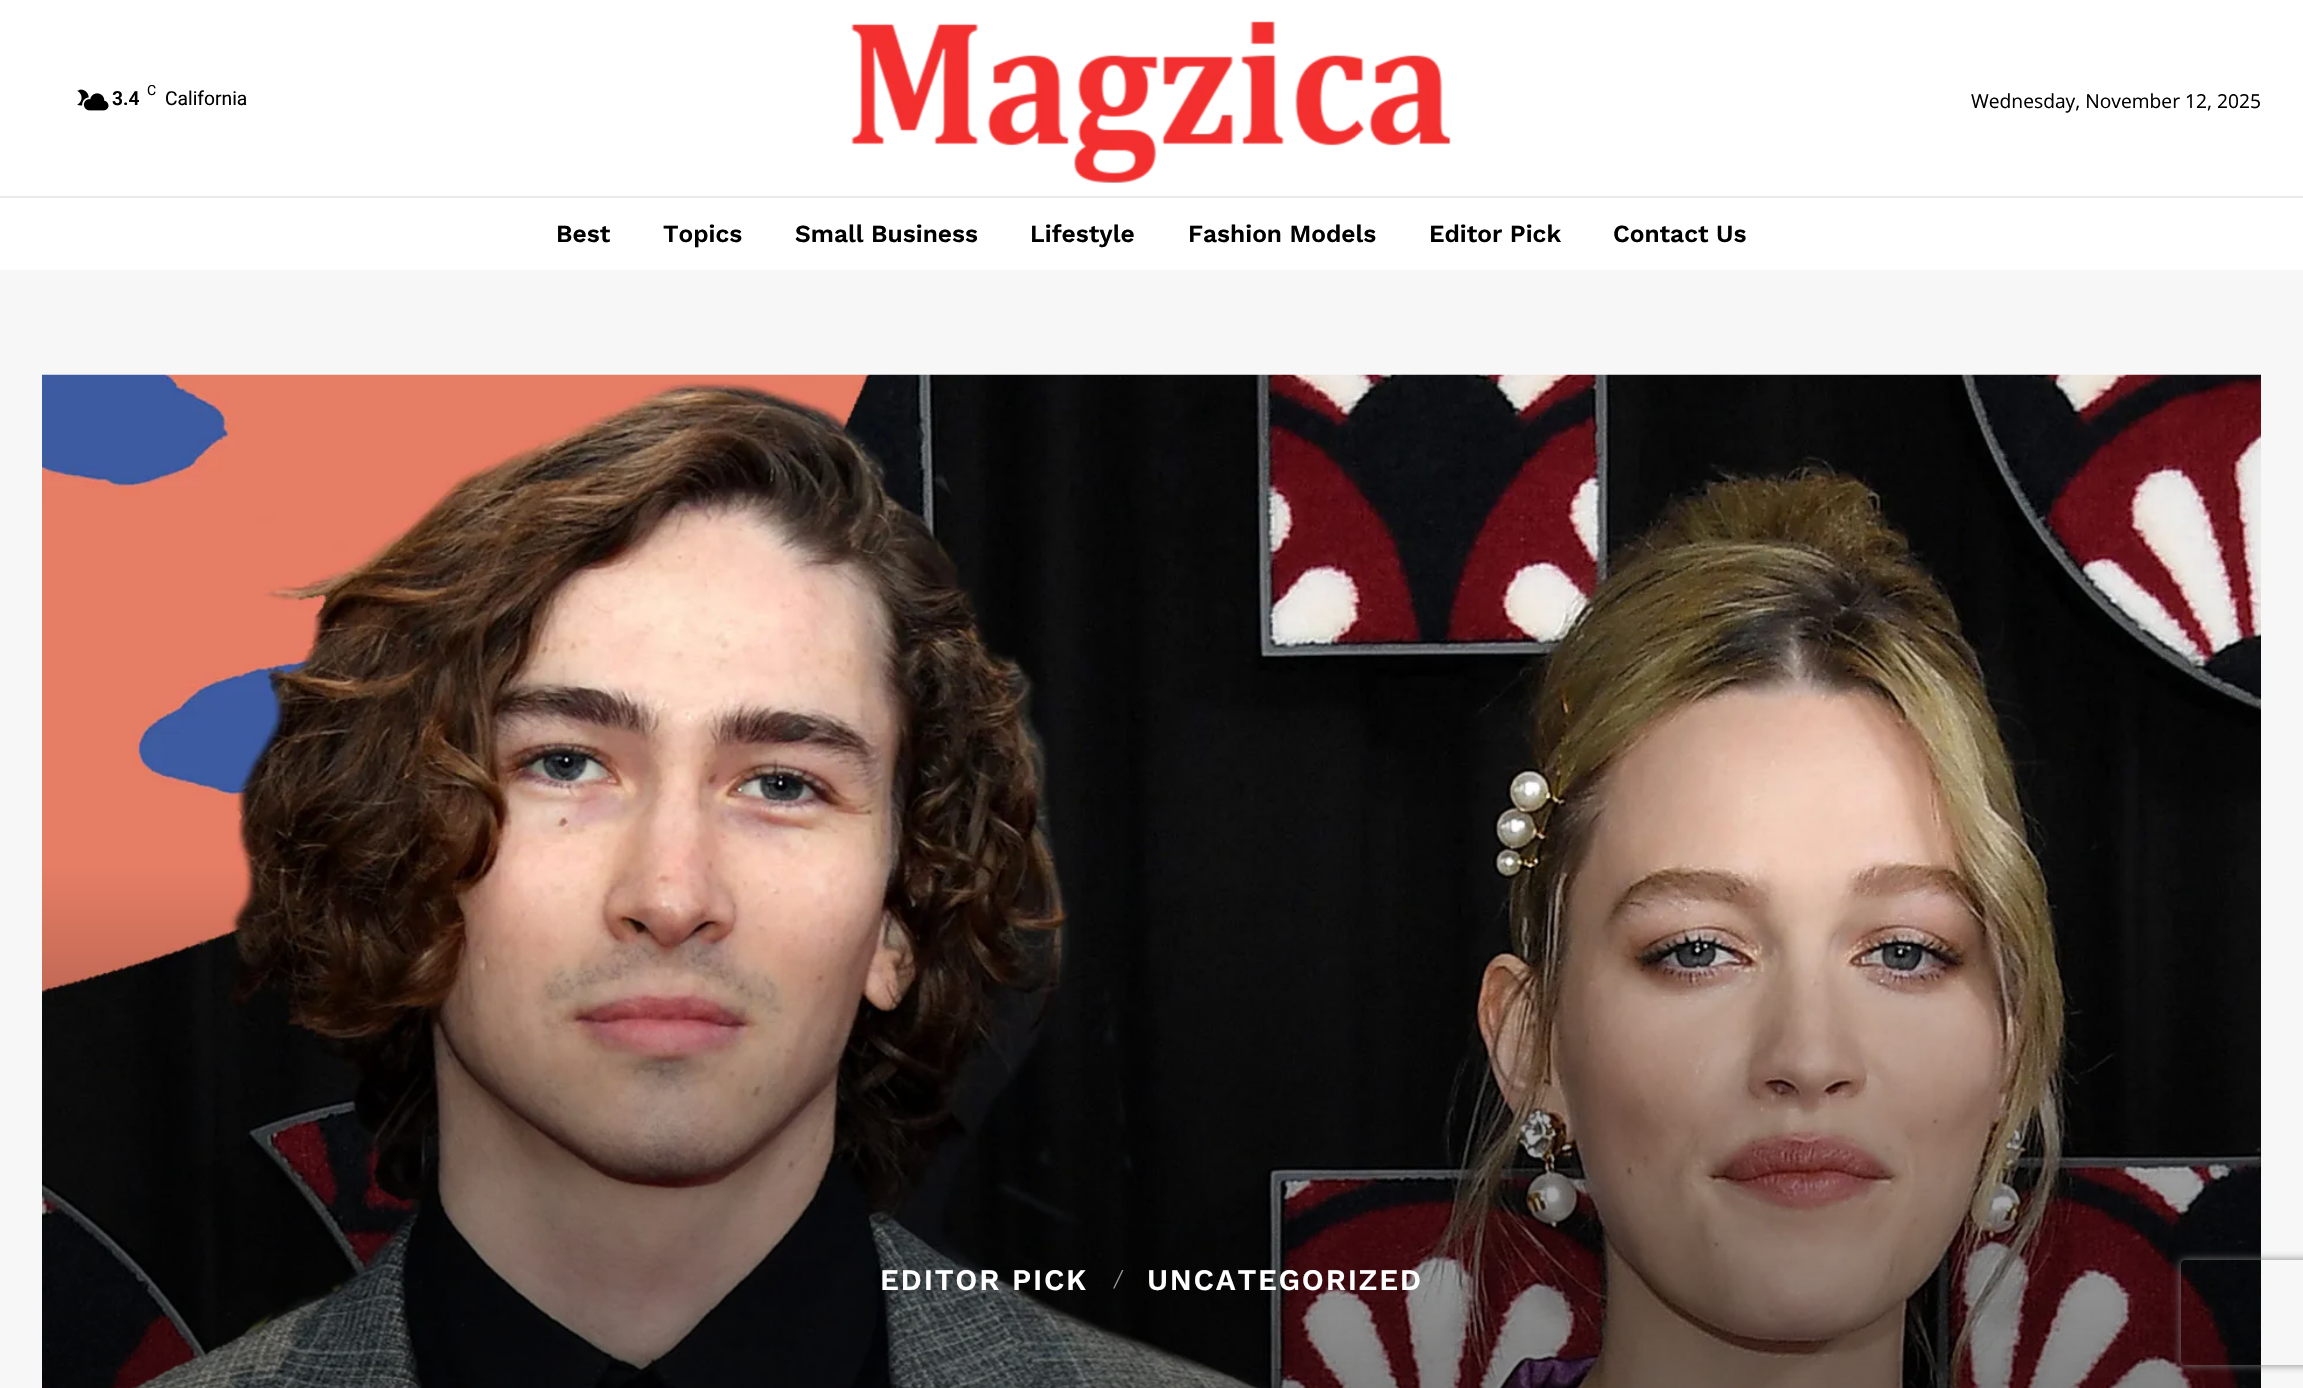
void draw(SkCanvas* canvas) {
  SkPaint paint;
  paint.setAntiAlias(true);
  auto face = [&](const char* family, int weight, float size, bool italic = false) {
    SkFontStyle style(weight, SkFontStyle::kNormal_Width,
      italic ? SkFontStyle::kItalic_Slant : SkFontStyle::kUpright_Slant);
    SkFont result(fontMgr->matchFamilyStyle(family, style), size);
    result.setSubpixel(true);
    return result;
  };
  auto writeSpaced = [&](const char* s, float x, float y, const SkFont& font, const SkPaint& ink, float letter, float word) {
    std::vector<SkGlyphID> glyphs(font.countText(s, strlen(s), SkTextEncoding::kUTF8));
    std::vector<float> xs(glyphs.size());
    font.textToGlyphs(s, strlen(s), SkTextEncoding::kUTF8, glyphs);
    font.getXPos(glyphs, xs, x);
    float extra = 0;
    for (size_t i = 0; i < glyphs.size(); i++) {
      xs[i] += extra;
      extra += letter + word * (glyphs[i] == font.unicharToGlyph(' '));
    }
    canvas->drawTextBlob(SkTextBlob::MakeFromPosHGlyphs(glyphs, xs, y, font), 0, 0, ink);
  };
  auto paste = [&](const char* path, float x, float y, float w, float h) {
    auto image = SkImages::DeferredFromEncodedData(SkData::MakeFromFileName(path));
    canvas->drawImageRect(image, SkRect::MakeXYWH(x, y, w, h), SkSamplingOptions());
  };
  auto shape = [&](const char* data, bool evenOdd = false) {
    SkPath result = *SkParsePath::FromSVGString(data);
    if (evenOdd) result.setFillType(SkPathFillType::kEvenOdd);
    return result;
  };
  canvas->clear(0xffffffff);
  paste("img/1.png", 77, 89, 32, 22);
  paste("img/2.png", 851, 21, 600, 162);
  paint.setColor(0xffeaeaea);
  canvas->drawRect(SkRect::MakeXYWH(0, 196, 2303, 2), paint);
  paint.setColor(0xfff7f7f7);
  canvas->drawRect(SkRect::MakeXYWH(0, 270, 2303, 1118), paint);
  paste("img/3.png", 42, 374, 2219, 1014);
  paint.setColor(0xff999999);
  canvas->drawPath(shape("M1122 1270L1113 1288.5H1114.5L1123.5 1270Z"), paint);
  canvas->save();
  canvas->clipPath(shape("M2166 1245H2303V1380H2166ZM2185 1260H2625C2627 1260 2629 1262 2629 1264V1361C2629 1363 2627 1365 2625 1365H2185C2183 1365 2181 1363 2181 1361V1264C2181 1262 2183 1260 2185 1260Z", true), true);
  paint.setColor(0xff808080);
  paint.setMaskFilter(SkMaskFilter::MakeBlur(kNormal_SkBlurStyle, 4.5f));
  canvas->drawRoundRect(SkRect::MakeXYWH(2181, 1260, 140, 105), 4, 4, paint);
  paint.setMaskFilter(nullptr);
  canvas->restore();
  auto f0 = face("Roboto", 600, 19.25f);
  paint.setColor(0xff000000);
  canvas->drawString("3.4", 112, 105, f0, paint);
  auto f1 = face("Roboto", 400, 14);
  canvas->drawString("C", 147, 95, f1, paint);
  auto f2 = face("Roboto", 400, 19.25f);
  canvas->drawString("California", 165, 105, f2, paint);
  auto f3 = face("Open Sans", 400, 19.25f);
  canvas->drawString("Wednesday, November 12, 2025", 1971, 108, f3, paint);
  auto f4 = face("Work Sans", 600, 24.5f);
  {
    const struct { const char* s; float x, y; } items[] = {
      {"Best", 556, 242},
      {"Topics", 663, 242},
      {"Small Business", 795, 242},
      {"Lifestyle", 1030, 242},
      {"Fashion Models", 1188, 242},
      {"Editor Pick", 1429, 242},
      {"Contact Us", 1613, 242},
    };
    for (auto [s, x, y] : items) {
      canvas->drawString(s, x, y, f4, paint);
    }
  }
  auto f5 = face("Work Sans", 600, 29.75f);
  paint.setColor(0xffffffff);
  writeSpaced("EDITOR PICK", 880, 1290, f5, paint, 1.75f, 0);
  writeSpaced("UNCATEGORIZED", 1147, 1290, f5, paint, 1.75f, 0);
}
